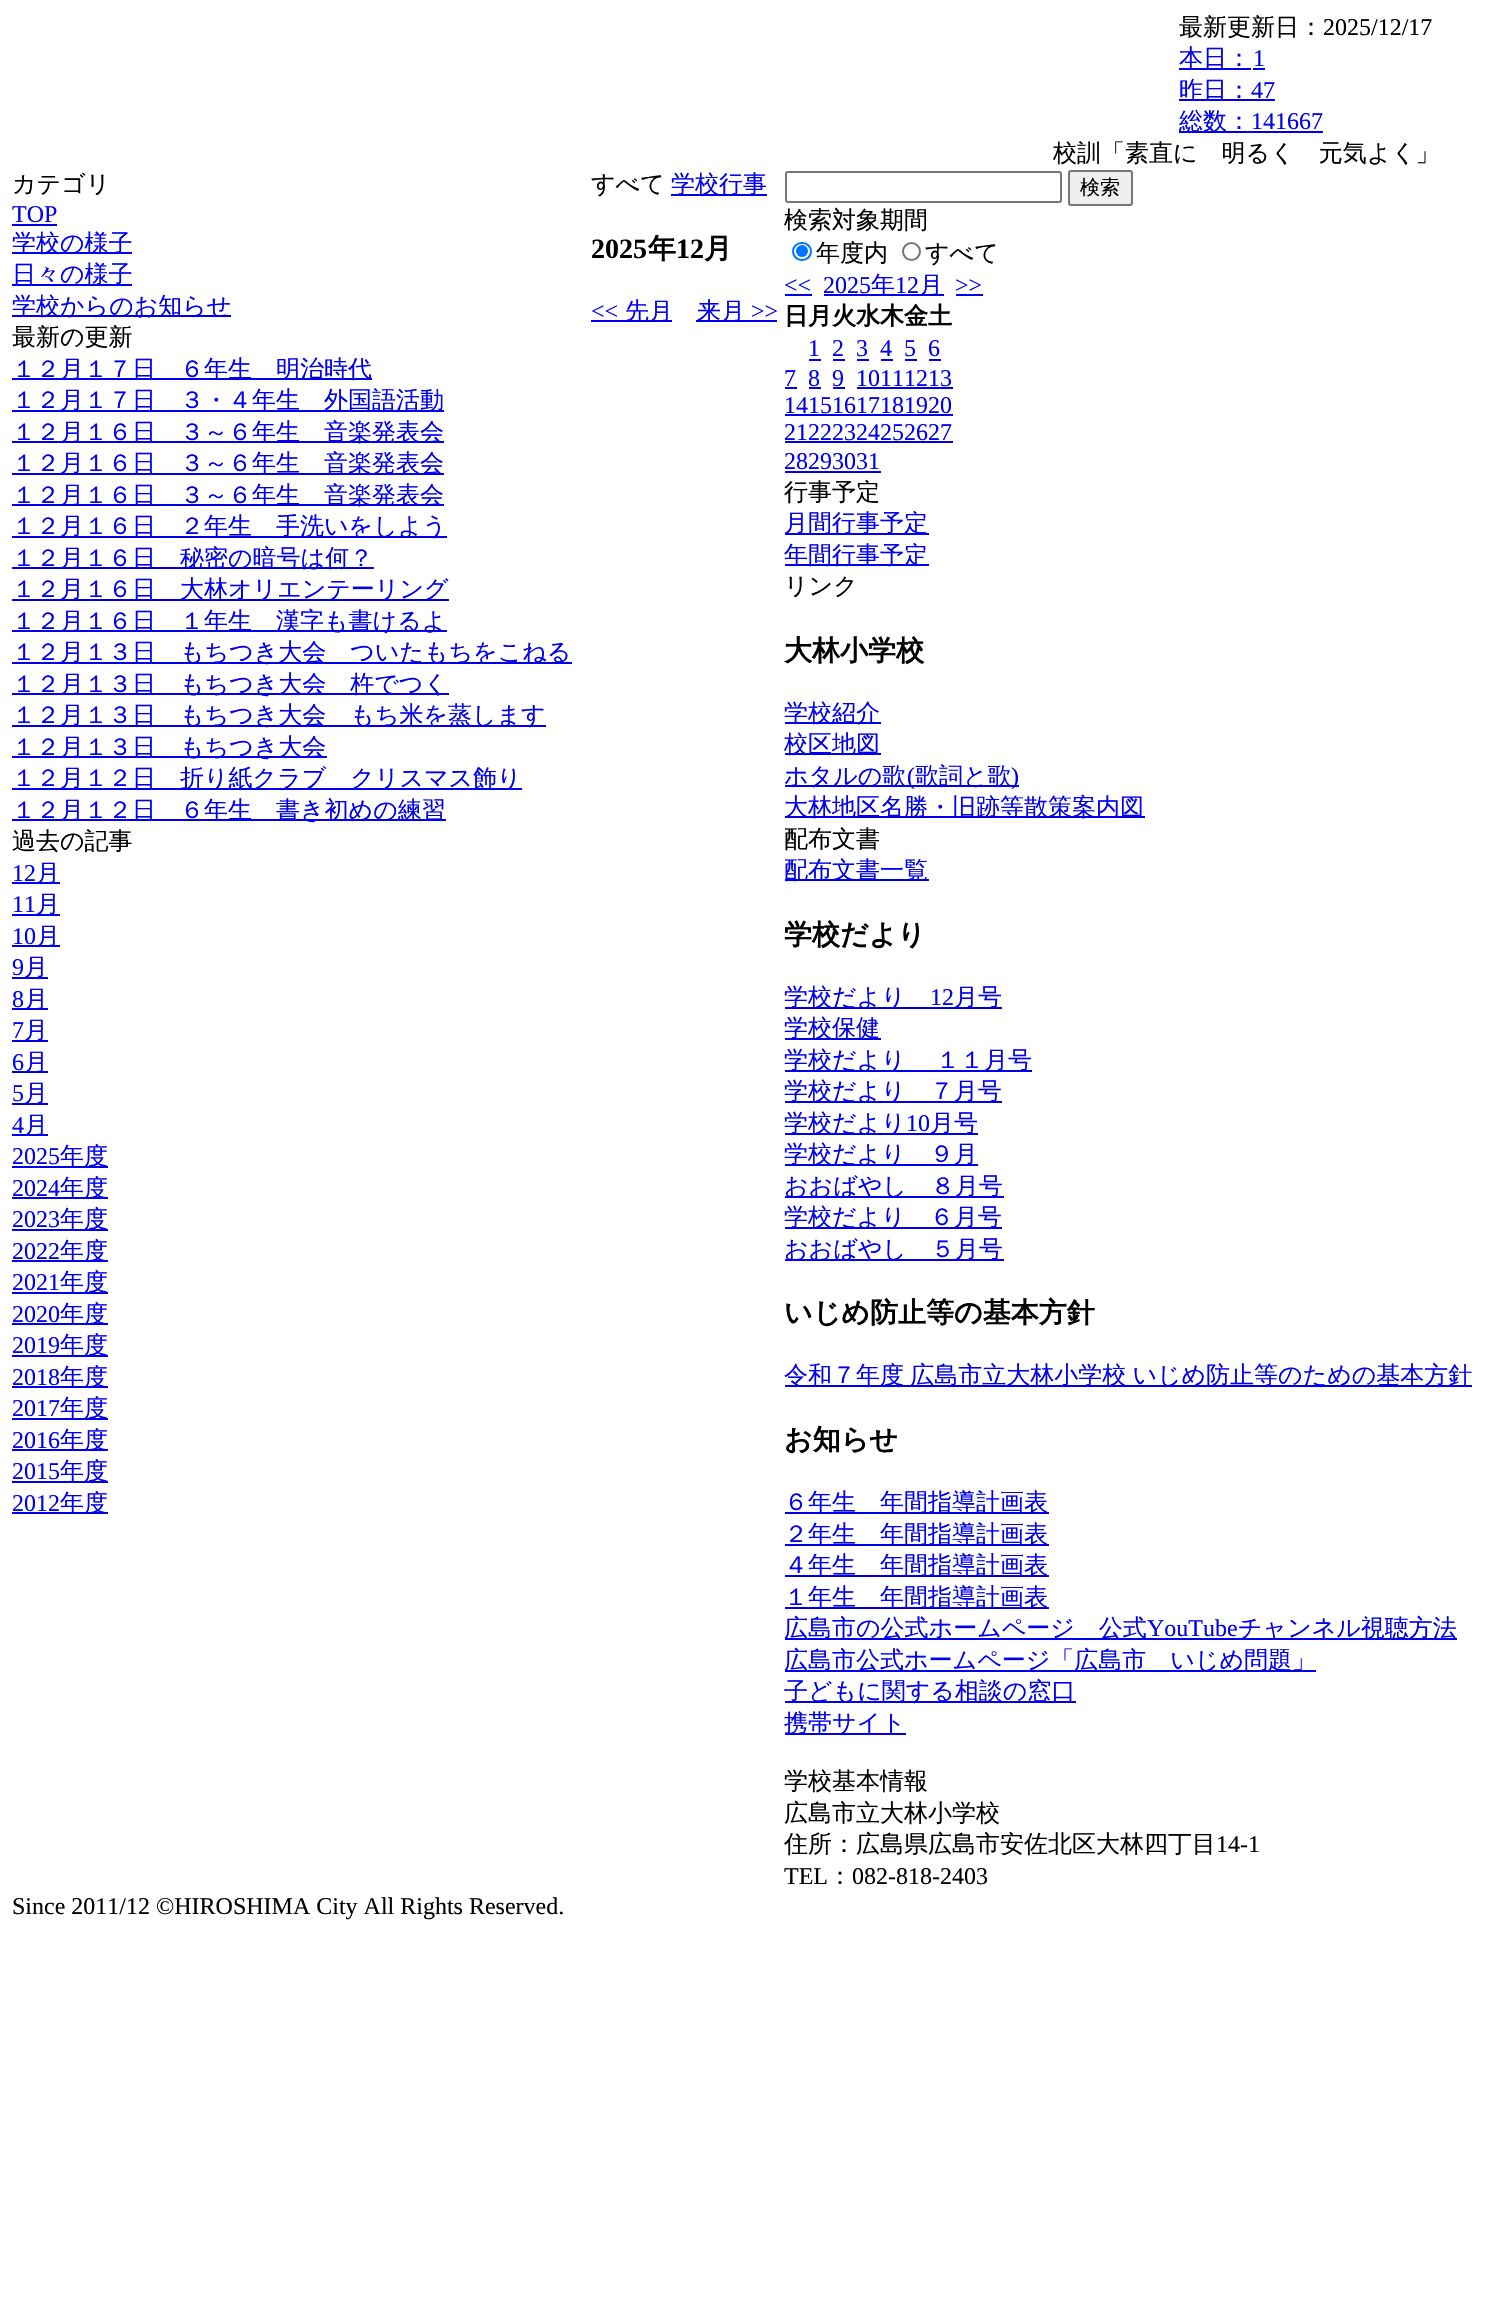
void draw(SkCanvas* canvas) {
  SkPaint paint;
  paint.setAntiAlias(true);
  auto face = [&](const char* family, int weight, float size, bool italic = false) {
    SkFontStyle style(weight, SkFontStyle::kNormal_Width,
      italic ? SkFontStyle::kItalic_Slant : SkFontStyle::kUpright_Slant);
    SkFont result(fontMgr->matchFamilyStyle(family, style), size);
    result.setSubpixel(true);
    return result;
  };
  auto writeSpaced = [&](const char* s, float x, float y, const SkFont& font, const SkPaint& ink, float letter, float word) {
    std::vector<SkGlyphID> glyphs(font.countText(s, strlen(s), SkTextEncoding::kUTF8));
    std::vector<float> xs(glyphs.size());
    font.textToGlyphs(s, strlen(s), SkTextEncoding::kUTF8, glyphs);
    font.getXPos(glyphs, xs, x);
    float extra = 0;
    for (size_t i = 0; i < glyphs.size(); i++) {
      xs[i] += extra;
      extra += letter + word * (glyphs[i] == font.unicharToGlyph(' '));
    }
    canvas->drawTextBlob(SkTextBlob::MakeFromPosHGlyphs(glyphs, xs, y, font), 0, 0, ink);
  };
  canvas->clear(0xffffffff);
  {
    const struct { float x, y, w, h; SkColor color; } items[] = {
      {1179, 68, 72, 2, 0xff0000ee},
      {1253, 68, 12, 2, 0xff0000ee},
      {1179, 99, 96, 2, 0xff0000ee},
      {1179, 131, 144, 2, 0xff0000ee},
      {12, 224, 45, 2, 0xff0000ee},
      {12, 252, 120, 2, 0xff0000ee},
      {12, 284, 120, 2, 0xff0000ee},
      {12, 315, 219, 2, 0xff0000ee},
      {12, 378, 360, 2, 0xff0000ee},
      {12, 410, 432, 2, 0xff0000ee},
      {12, 441, 432, 2, 0xff0000ee},
      {12, 473, 432, 2, 0xff0000ee},
      {12, 504, 432, 2, 0xff0000ee},
      {12, 536, 435, 2, 0xff0000ee},
      {12, 567, 362, 2, 0xff0000ee},
      {12, 599, 437, 2, 0xff0000ee},
      {12, 630, 435, 2, 0xff0000ee},
      {12, 662, 560, 2, 0xff0000ee},
      {12, 693, 437, 2, 0xff0000ee},
      {12, 725, 534, 2, 0xff0000ee},
      {12, 756, 315, 2, 0xff0000ee},
      {12, 788, 510, 2, 0xff0000ee},
      {12, 819, 434, 2, 0xff0000ee},
      {12, 882, 48, 2, 0xff0000ee},
      {12, 914, 48, 2, 0xff0000ee},
      {12, 945, 48, 2, 0xff0000ee},
      {12, 977, 36, 2, 0xff0000ee},
      {12, 1008, 36, 2, 0xff0000ee},
      {12, 1040, 36, 2, 0xff0000ee},
      {12, 1071, 36, 2, 0xff0000ee},
      {12, 1103, 36, 2, 0xff0000ee},
      {12, 1134, 36, 2, 0xff0000ee},
      {12, 1166, 96, 2, 0xff0000ee},
      {12, 1197, 96, 2, 0xff0000ee},
      {12, 1229, 96, 2, 0xff0000ee},
      {12, 1260, 96, 2, 0xff0000ee},
      {12, 1292, 96, 2, 0xff0000ee},
      {12, 1323, 96, 2, 0xff0000ee},
      {12, 1355, 96, 2, 0xff0000ee},
      {12, 1386, 96, 2, 0xff0000ee},
      {12, 1418, 96, 2, 0xff0000ee},
      {12, 1449, 96, 2, 0xff0000ee},
      {12, 1481, 96, 2, 0xff0000ee},
      {12, 1512, 96, 2, 0xff0000ee},
      {671, 194, 96, 2, 0xff0000ee},
      {591, 320, 81, 2, 0xff0000ee},
      {696, 320, 81, 2, 0xff0000ee},
    };
    for (auto [x, y, w, h, color] : items) {
      paint.setColor(color);
      canvas->drawRect(SkRect::MakeXYWH(x, y, w, h), paint);
    }
  }
  paint.setStroke(true);
  paint.setStrokeWidth(2);
  paint.setColor(0xff767676);
  canvas->drawRoundRect(SkRect::MakeXYWH(786, 172, 275, 30), 2, 2, paint);
  paint.setStroke(false);
  paint.setColor(0xffefefef);
  canvas->drawRoundRect(SkRect::MakeXYWH(1069, 171, 63, 34), 2, 2, paint);
  paint.setStroke(true);
  paint.setColor(0xff767676);
  canvas->drawRoundRect(SkRect::MakeXYWH(1069, 171, 63, 34), 2, 2, paint);
  paint.setColor(0xff0075ff);
  canvas->drawRoundRect(SkRect::MakeXYWH(793, 243, 18, 17), 8.5f, 8.5f, paint);
  paint.setStroke(false);
  canvas->drawCircle(802, 251, 6, paint);
  paint.setStroke(true);
  paint.setColor(0xff767676);
  canvas->drawCircle(911.5f, 251.5f, 8.5f, paint);
  paint.setStroke(false);
  {
    const struct { float x, y, w, h; SkColor color; } items[] = {
      {785, 294, 27, 2, 0xff0000ee},
      {824, 294, 120, 2, 0xff0000ee},
      {956, 294, 27, 2, 0xff0000ee},
      {809, 359, 12, 2, 0xff0000ee},
      {833, 359, 12, 2, 0xff0000ee},
      {857, 359, 12, 2, 0xff0000ee},
      {881, 359, 12, 2, 0xff0000ee},
      {905, 359, 12, 2, 0xff0000ee},
      {929, 359, 12, 2, 0xff0000ee},
      {785, 387, 12, 2, 0xff0000ee},
      {809, 387, 12, 2, 0xff0000ee},
      {833, 387, 12, 2, 0xff0000ee},
      {857, 387, 96, 2, 0xff0000ee},
      {785, 414, 168, 2, 0xff0000ee},
      {785, 441, 168, 2, 0xff0000ee},
      {785, 471, 96, 2, 0xff0000ee},
      {785, 533, 144, 2, 0xff0000ee},
      {785, 564, 144, 2, 0xff0000ee},
      {785, 722, 96, 2, 0xff0000ee},
      {785, 753, 96, 2, 0xff0000ee},
      {785, 785, 234, 2, 0xff0000ee},
      {785, 816, 360, 2, 0xff0000ee},
      {785, 879, 144, 2, 0xff0000ee},
      {785, 1007, 217, 2, 0xff0000ee},
      {785, 1038, 96, 2, 0xff0000ee},
      {785, 1070, 247, 2, 0xff0000ee},
      {785, 1101, 217, 2, 0xff0000ee},
      {785, 1133, 193, 2, 0xff0000ee},
      {785, 1164, 193, 2, 0xff0000ee},
      {785, 1196, 219, 2, 0xff0000ee},
      {785, 1227, 217, 2, 0xff0000ee},
      {785, 1259, 219, 2, 0xff0000ee},
      {785, 1385, 687, 2, 0xff0000ee},
      {785, 1512, 264, 2, 0xff0000ee},
      {785, 1544, 264, 2, 0xff0000ee},
      {785, 1575, 264, 2, 0xff0000ee},
      {785, 1607, 264, 2, 0xff0000ee},
      {785, 1638, 672, 2, 0xff0000ee},
      {785, 1670, 531, 2, 0xff0000ee},
      {785, 1701, 291, 2, 0xff0000ee},
      {785, 1733, 121, 2, 0xff0000ee},
    };
    for (auto [x, y, w, h, color] : items) {
      paint.setColor(color);
      canvas->drawRect(SkRect::MakeXYWH(x, y, w, h), paint);
    }
  }
  auto f0 = face("WenQuanYi Zen Hei", 500, 24);
  paint.setColor(0xff000000);
  canvas->drawString("最新更新日：", 1179, 35, f0, paint);
  auto f1 = face("Liberation Serif", 400, 24);
  canvas->drawString("2025/12/17", 1323, 35, f1, paint);
  paint.setColor(0xff0000ee);
  canvas->drawString("本日：", 1179, 66, f0, paint);
  canvas->drawString("1", 1253, 66, f1, paint);
  canvas->drawString("昨日：", 1179, 98, f0, paint);
  canvas->drawString("47", 1251, 98, f1, paint);
  canvas->drawString("総数：", 1179, 129, f0, paint);
  canvas->drawString("141667", 1251, 129, f1, paint);
  paint.setColor(0xff000000);
  canvas->drawString("校訓「素直に　明るく　元気よく」", 1053, 161, f0, paint);
  canvas->drawString("カテゴリ", 12, 192, f0, paint);
  paint.setColor(0xff0000ee);
  canvas->drawString("TOP", 12, 222, f1, paint);
  {
    const struct { const char* s; float x, y; } items[] = {
      {"学校の様子", 12, 251},
      {"日々の様子", 12, 282},
      {"学校からのお知らせ", 12, 314},
    };
    for (auto [s, x, y] : items) {
      canvas->drawString(s, x, y, f0, paint);
    }
  }
  paint.setColor(0xff000000);
  canvas->drawString("最新の更新", 12, 345, f0, paint);
  paint.setColor(0xff0000ee);
  {
    const struct { const char* s; float x, y; } items[] = {
      {"１２月１７日　６年生　明治時代", 12, 377},
      {"１２月１７日　３・４年生　外国語活動", 12, 408},
      {"１２月１６日　３～６年生　音楽発表会", 12, 440},
      {"１２月１６日　３～６年生　音楽発表会", 12, 471},
      {"１２月１６日　３～６年生　音楽発表会", 12, 503},
      {"１２月１６日　２年生　手洗いをしよう", 12, 534},
      {"１２月１６日　秘密の暗号は何？", 12, 566},
      {"１２月１６日　大林オリエンテーリング", 12, 597},
      {"１２月１６日　１年生　漢字も書けるよ", 12, 629},
      {"１２月１３日　もちつき大会　ついたもちをこねる", 12, 660},
      {"１２月１３日　もちつき大会　杵でつく", 12, 692},
      {"１２月１３日　もちつき大会　もち米を蒸します", 12, 723},
      {"１２月１３日　もちつき大会", 12, 755},
      {"１２月１２日　折り紙クラブ　クリスマス飾り", 12, 786},
      {"１２月１２日　６年生　書き初めの練習", 12, 818},
    };
    for (auto [s, x, y] : items) {
      canvas->drawString(s, x, y, f0, paint);
    }
  }
  paint.setColor(0xff000000);
  canvas->drawString("過去の記事", 12, 849, f0, paint);
  paint.setColor(0xff0000ee);
  canvas->drawString("12", 12, 881, f1, paint);
  canvas->drawString("月", 36, 881, f0, paint);
  canvas->drawString("11", 12, 912, f1, paint);
  canvas->drawString("月", 36, 912, f0, paint);
  canvas->drawString("10", 12, 944, f1, paint);
  canvas->drawString("月", 36, 944, f0, paint);
  canvas->drawString("9", 12, 975, f1, paint);
  canvas->drawString("月", 24, 975, f0, paint);
  canvas->drawString("8", 12, 1007, f1, paint);
  canvas->drawString("月", 24, 1007, f0, paint);
  canvas->drawString("7", 12, 1038, f1, paint);
  canvas->drawString("月", 24, 1038, f0, paint);
  canvas->drawString("6", 12, 1070, f1, paint);
  canvas->drawString("月", 24, 1070, f0, paint);
  canvas->drawString("5", 12, 1101, f1, paint);
  canvas->drawString("月", 24, 1101, f0, paint);
  canvas->drawString("4", 12, 1133, f1, paint);
  canvas->drawString("月", 24, 1133, f0, paint);
  canvas->drawString("2025", 12, 1164, f1, paint);
  canvas->drawString("年度", 60, 1164, f0, paint);
  canvas->drawString("2024", 12, 1196, f1, paint);
  canvas->drawString("年度", 60, 1196, f0, paint);
  canvas->drawString("2023", 12, 1227, f1, paint);
  canvas->drawString("年度", 60, 1227, f0, paint);
  canvas->drawString("2022", 12, 1259, f1, paint);
  canvas->drawString("年度", 60, 1259, f0, paint);
  canvas->drawString("2021", 12, 1290, f1, paint);
  canvas->drawString("年度", 60, 1290, f0, paint);
  canvas->drawString("2020", 12, 1322, f1, paint);
  canvas->drawString("年度", 60, 1322, f0, paint);
  canvas->drawString("2019", 12, 1353, f1, paint);
  canvas->drawString("年度", 60, 1353, f0, paint);
  canvas->drawString("2018", 12, 1385, f1, paint);
  canvas->drawString("年度", 60, 1385, f0, paint);
  canvas->drawString("2017", 12, 1416, f1, paint);
  canvas->drawString("年度", 60, 1416, f0, paint);
  canvas->drawString("2016", 12, 1448, f1, paint);
  canvas->drawString("年度", 60, 1448, f0, paint);
  canvas->drawString("2015", 12, 1479, f1, paint);
  canvas->drawString("年度", 60, 1479, f0, paint);
  canvas->drawString("2012", 12, 1511, f1, paint);
  canvas->drawString("年度", 60, 1511, f0, paint);
  paint.setColor(0xff000000);
  canvas->drawString("すべて", 591, 192, f0, paint);
  paint.setColor(0xff0000ee);
  canvas->drawString("学校行事", 671, 192, f0, paint);
  auto f2 = face("Liberation Serif", 700, 28);
  paint.setColor(0xff000000);
  canvas->drawString("2025", 591, 258, f2, paint);
  auto f3 = face("WenQuanYi Zen Hei", 700, 28);
  canvas->drawString("年", 648, 258, f3, paint);
  canvas->drawString("12", 676, 258, f2, paint);
  canvas->drawString("月", 704, 258, f3, paint);
  paint.setColor(0xff0000ee);
  canvas->drawString("<<", 591, 319, f1, paint);
  canvas->drawString("先月", 625, 319, f0, paint);
  canvas->drawString("来月", 697, 319, f0, paint);
  canvas->drawString(">>", 751, 319, f1, paint);
  auto f4 = face("WenQuanYi Zen Hei", 500, 20);
  paint.setColor(0xff000000);
  canvas->drawString("検索", 1080, 194, f4, paint);
  {
    const struct { const char* s; float x, y; } items[] = {
      {"検索対象期間", 784, 228},
      {"年度内", 816, 261},
      {"すべて", 925, 261},
    };
    for (auto [s, x, y] : items) {
      canvas->drawString(s, x, y, f0, paint);
    }
  }
  paint.setColor(0xff0000ee);
  canvas->drawString("<<", 784, 293, f1, paint);
  canvas->drawString("2025", 823, 293, f1, paint);
  canvas->drawString("年", 871, 293, f0, paint);
  canvas->drawString("12", 895, 293, f1, paint);
  canvas->drawString("月", 919, 293, f0, paint);
  canvas->drawString(">>", 955, 293, f1, paint);
  auto f5 = face("WenQuanYi Zen Hei", 700, 24);
  paint.setColor(0xff000000);
  canvas->drawString("日月火水木金土", 784, 324, f5, paint);
  paint.setColor(0xff0000ee);
  {
    const struct { const char* s; float x, y; } items[] = {
      {"1", 808, 356},
      {"2", 832, 356},
      {"3", 856, 356},
      {"4", 880, 356},
      {"5", 904, 356},
      {"6", 928, 356},
      {"7", 784, 386},
      {"8", 808, 386},
      {"9", 832, 386},
      {"10111213", 856, 386},
      {"14151617181920", 784, 413},
      {"21222324252627", 784, 440},
      {"28293031", 784, 469},
    };
    for (auto [s, x, y] : items) {
      canvas->drawString(s, x, y, f1, paint);
    }
  }
  paint.setColor(0xff000000);
  canvas->drawString("行事予定", 784, 500, f0, paint);
  paint.setColor(0xff0000ee);
  canvas->drawString("月間行事予定", 784, 531, f0, paint);
  canvas->drawString("年間行事予定", 784, 563, f0, paint);
  paint.setColor(0xff000000);
  canvas->drawString("リンク", 784, 594, f0, paint);
  canvas->drawString("大林小学校", 784, 660, f3, paint);
  paint.setColor(0xff0000ee);
  {
    const struct { const char* s; float x, y; } items[] = {
      {"学校紹介", 784, 721},
      {"校区地図", 784, 752},
      {"ホタルの歌", 784, 784},
    };
    for (auto [s, x, y] : items) {
      canvas->drawString(s, x, y, f0, paint);
    }
  }
  canvas->drawString("(", 907, 784, f1, paint);
  canvas->drawString("歌詞と歌", 915, 784, f0, paint);
  canvas->drawString(")", 1011, 784, f1, paint);
  canvas->drawString("大林地区名勝・旧跡等散策案内図", 784, 815, f0, paint);
  paint.setColor(0xff000000);
  canvas->drawString("配布文書", 784, 847, f0, paint);
  paint.setColor(0xff0000ee);
  canvas->drawString("配布文書一覧", 784, 878, f0, paint);
  paint.setColor(0xff000000);
  canvas->drawString("学校だより", 784, 944, f3, paint);
  paint.setColor(0xff0000ee);
  canvas->drawString("学校だより", 784, 1005, f0, paint);
  canvas->drawString("12", 930, 1005, f1, paint);
  canvas->drawString("月号", 954, 1005, f0, paint);
  canvas->drawString("学校保健", 784, 1036, f0, paint);
  writeSpaced("学校だより 　１１月号", 784, 1068, f0, paint, 0, -1);
  canvas->drawString("学校だより　７月号", 784, 1099, f0, paint);
  canvas->drawString("学校だより", 784, 1131, f0, paint);
  canvas->drawString("10", 906, 1131, f1, paint);
  {
    const struct { const char* s; float x, y; } items[] = {
      {"月号", 930, 1131},
      {"学校だより　９月", 784, 1162},
      {"おおばやし　８月号", 784, 1194},
      {"学校だより　６月号", 784, 1225},
      {"おおばやし　５月号", 784, 1257},
    };
    for (auto [s, x, y] : items) {
      canvas->drawString(s, x, y, f0, paint);
    }
  }
  paint.setColor(0xff000000);
  canvas->drawString("いじめ防止等の基本方針", 784, 1322, f3, paint);
  paint.setColor(0xff0000ee);
  writeSpaced("令和７年度 広島市立大林小学校 いじめ防止等のための基本方針", 784, 1383, f0, paint, 0, -1);
  paint.setColor(0xff000000);
  canvas->drawString("お知らせ", 784, 1449, f3, paint);
  paint.setColor(0xff0000ee);
  {
    const struct { const char* s; float x, y; } items[] = {
      {"６年生　年間指導計画表", 784, 1510},
      {"２年生　年間指導計画表", 784, 1542},
      {"４年生　年間指導計画表", 784, 1573},
      {"１年生　年間指導計画表", 784, 1605},
      {"広島市の公式ホームページ　公式", 784, 1636},
    };
    for (auto [s, x, y] : items) {
      canvas->drawString(s, x, y, f0, paint);
    }
  }
  canvas->drawString("YouTube", 1147, 1636, f1, paint);
  {
    const struct { const char* s; float x, y; } items[] = {
      {"チャンネル視聴方法", 1238, 1636},
      {"広島市公式ホームページ「広島市　いじめ問題」", 784, 1668},
      {"子どもに関する相談の窓口", 784, 1699},
      {"携帯サイト", 784, 1731},
    };
    for (auto [s, x, y] : items) {
      canvas->drawString(s, x, y, f0, paint);
    }
  }
  paint.setColor(0xff000000);
  {
    const struct { const char* s; float x, y; } items[] = {
      {"学校基本情報", 784, 1789},
      {"広島市立大林小学校", 784, 1821},
      {"住所：広島県広島市安佐北区大林四丁目", 784, 1852},
    };
    for (auto [s, x, y] : items) {
      canvas->drawString(s, x, y, f0, paint);
    }
  }
  canvas->drawString("14-1", 1216, 1852, f1, paint);
  canvas->drawString("TEL", 784, 1884, f1, paint);
  canvas->drawString("：", 828, 1884, f0, paint);
  canvas->drawString("082-818-2403", 852, 1884, f1, paint);
  canvas->drawString("Since 2011/12 ©HIROSHIMA City All Rights Reserved.", 12, 1914, f1, paint);
}
